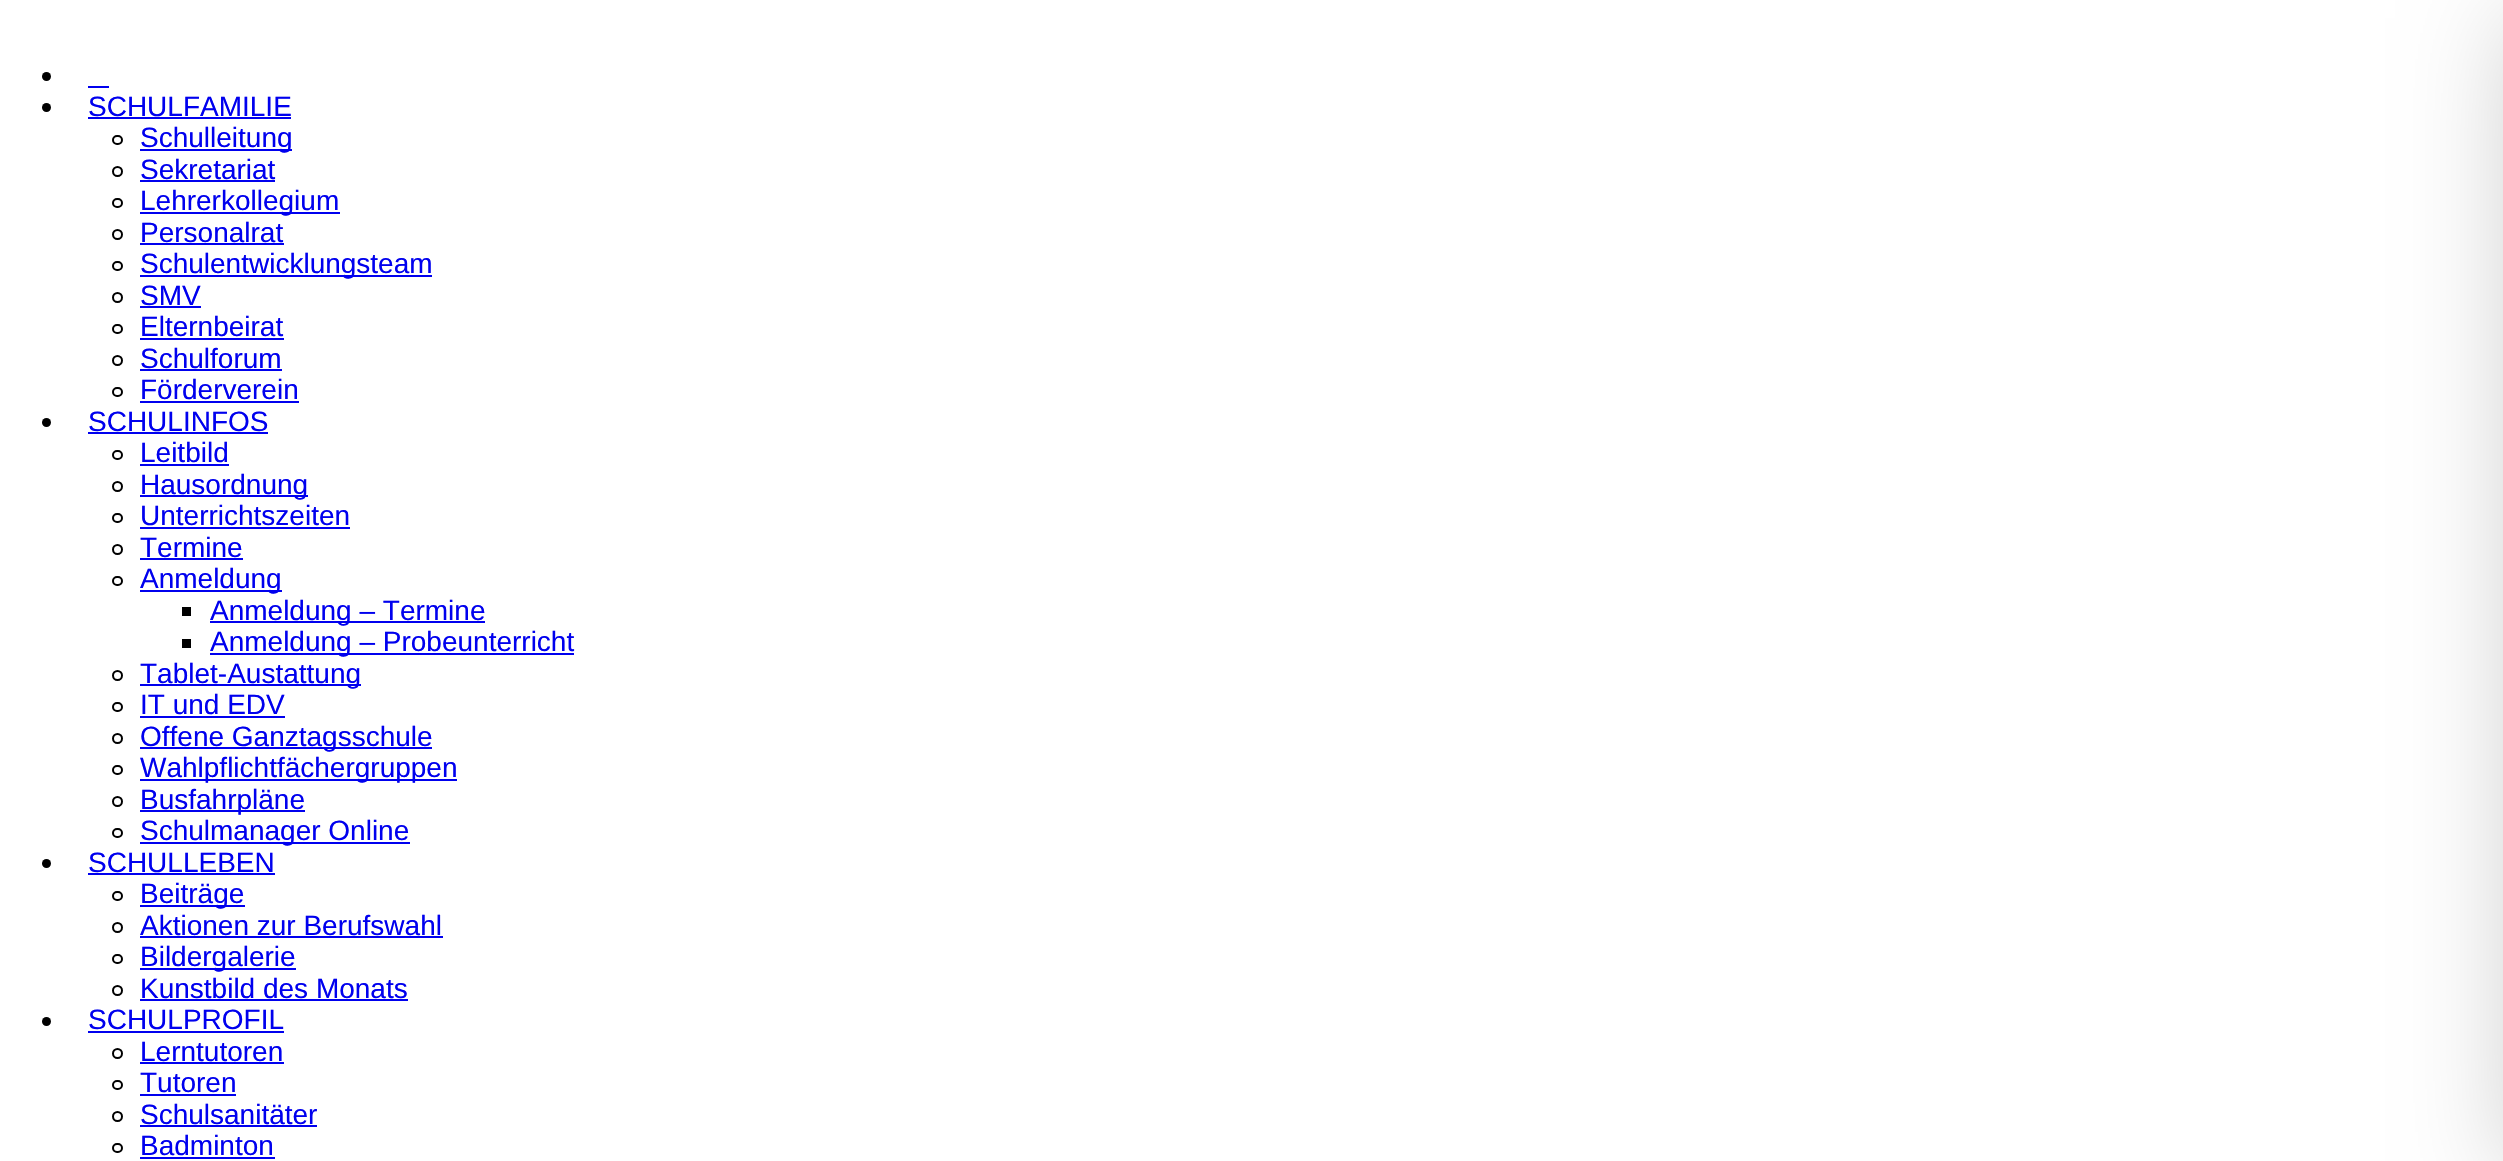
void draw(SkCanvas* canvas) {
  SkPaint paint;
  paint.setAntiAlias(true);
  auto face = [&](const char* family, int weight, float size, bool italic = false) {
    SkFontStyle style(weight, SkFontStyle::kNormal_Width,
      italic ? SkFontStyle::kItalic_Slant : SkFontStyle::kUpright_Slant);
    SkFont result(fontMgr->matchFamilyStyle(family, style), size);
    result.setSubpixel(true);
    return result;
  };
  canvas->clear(0xffffffff);
  paint.setColor(0xff000000);
  canvas->drawCircle(46.5f, 76.5f, 4.5f, paint);
  paint.setColor(0xff0000ee);
  canvas->drawRect(SkRect::MakeXYWH(88, 86, 21, 2), paint);
  paint.setColor(0xff000000);
  canvas->drawCircle(46.5f, 107.5f, 4.5f, paint);
  paint.setColor(0xff0000ee);
  canvas->drawRect(SkRect::MakeXYWH(88, 117, 203, 2), paint);
  paint.setStroke(true);
  paint.setStrokeWidth(2);
  paint.setColor(0xff000000);
  canvas->drawRoundRect(SkRect::MakeXYWH(113, 136, 9, 8), 4, 4, paint);
  paint.setStroke(false);
  paint.setColor(0xff0000ee);
  canvas->drawRect(SkRect::MakeXYWH(140, 149, 152, 2), paint);
  paint.setStroke(true);
  paint.setColor(0xff000000);
  canvas->drawCircle(117.5f, 171.5f, 4.5f, paint);
  paint.setStroke(false);
  paint.setColor(0xff0000ee);
  canvas->drawRect(SkRect::MakeXYWH(140, 180, 135, 2), paint);
  paint.setStroke(true);
  paint.setColor(0xff000000);
  canvas->drawRoundRect(SkRect::MakeXYWH(113, 199, 9, 8), 4, 4, paint);
  paint.setStroke(false);
  paint.setColor(0xff0000ee);
  canvas->drawRect(SkRect::MakeXYWH(140, 212, 200, 2), paint);
  paint.setStroke(true);
  paint.setColor(0xff000000);
  canvas->drawCircle(117.5f, 234.5f, 4.5f, paint);
  paint.setStroke(false);
  paint.setColor(0xff0000ee);
  canvas->drawRect(SkRect::MakeXYWH(140, 243, 144, 2), paint);
  paint.setStroke(true);
  paint.setColor(0xff000000);
  canvas->drawRoundRect(SkRect::MakeXYWH(113, 262, 9, 8), 4, 4, paint);
  paint.setStroke(false);
  paint.setColor(0xff0000ee);
  canvas->drawRect(SkRect::MakeXYWH(140, 275, 292, 2), paint);
  paint.setStroke(true);
  paint.setColor(0xff000000);
  canvas->drawCircle(117.5f, 297.5f, 4.5f, paint);
  paint.setStroke(false);
  paint.setColor(0xff0000ee);
  canvas->drawRect(SkRect::MakeXYWH(140, 306, 61, 2), paint);
  paint.setStroke(true);
  paint.setColor(0xff000000);
  canvas->drawRoundRect(SkRect::MakeXYWH(113, 325, 9, 8), 4, 4, paint);
  paint.setStroke(false);
  paint.setColor(0xff0000ee);
  canvas->drawRect(SkRect::MakeXYWH(140, 338, 144, 2), paint);
  paint.setStroke(true);
  paint.setColor(0xff000000);
  canvas->drawCircle(117.5f, 360.5f, 4.5f, paint);
  paint.setStroke(false);
  paint.setColor(0xff0000ee);
  canvas->drawRect(SkRect::MakeXYWH(140, 369, 142, 2), paint);
  paint.setStroke(true);
  paint.setColor(0xff000000);
  canvas->drawRoundRect(SkRect::MakeXYWH(113, 388, 9, 8), 4, 4, paint);
  paint.setStroke(false);
  paint.setColor(0xff0000ee);
  canvas->drawRect(SkRect::MakeXYWH(140, 401, 159, 2), paint);
  paint.setColor(0xff000000);
  canvas->drawCircle(46.5f, 422.5f, 4.5f, paint);
  paint.setColor(0xff0000ee);
  canvas->drawRect(SkRect::MakeXYWH(88, 432, 180, 2), paint);
  paint.setStroke(true);
  paint.setColor(0xff000000);
  canvas->drawRoundRect(SkRect::MakeXYWH(113, 451, 9, 8), 4, 4, paint);
  paint.setStroke(false);
  paint.setColor(0xff0000ee);
  canvas->drawRect(SkRect::MakeXYWH(140, 464, 89, 2), paint);
  paint.setStroke(true);
  paint.setColor(0xff000000);
  canvas->drawCircle(117.5f, 486.5f, 4.5f, paint);
  paint.setStroke(false);
  paint.setColor(0xff0000ee);
  canvas->drawRect(SkRect::MakeXYWH(140, 495, 168, 2), paint);
  paint.setStroke(true);
  paint.setColor(0xff000000);
  canvas->drawRoundRect(SkRect::MakeXYWH(113, 514, 9, 8), 4, 4, paint);
  paint.setStroke(false);
  paint.setColor(0xff0000ee);
  canvas->drawRect(SkRect::MakeXYWH(140, 527, 210, 2), paint);
  paint.setStroke(true);
  paint.setColor(0xff000000);
  canvas->drawCircle(117.5f, 549.5f, 4.5f, paint);
  paint.setStroke(false);
  paint.setColor(0xff0000ee);
  canvas->drawRect(SkRect::MakeXYWH(140, 558, 103, 2), paint);
  paint.setStroke(true);
  paint.setColor(0xff000000);
  canvas->drawRoundRect(SkRect::MakeXYWH(113, 577, 9, 8), 4, 4, paint);
  paint.setStroke(false);
  {
    const struct { float x, y, w, h; SkColor color; } items[] = {
      {140, 590, 142, 2, 0xff0000ee},
      {182, 607, 9, 9, 0xff000000},
      {210, 621, 275, 2, 0xff0000ee},
      {182, 639, 9, 9, 0xff000000},
      {210, 653, 364, 2, 0xff0000ee},
    };
    for (auto [x, y, w, h, color] : items) {
      paint.setColor(color);
      canvas->drawRect(SkRect::MakeXYWH(x, y, w, h), paint);
    }
  }
  paint.setStroke(true);
  paint.setColor(0xff000000);
  canvas->drawCircle(117.5f, 675.5f, 4.5f, paint);
  paint.setStroke(false);
  paint.setColor(0xff0000ee);
  canvas->drawRect(SkRect::MakeXYWH(140, 684, 221, 2), paint);
  paint.setStroke(true);
  paint.setColor(0xff000000);
  canvas->drawRoundRect(SkRect::MakeXYWH(113, 703, 9, 8), 4, 4, paint);
  paint.setStroke(false);
  paint.setColor(0xff0000ee);
  canvas->drawRect(SkRect::MakeXYWH(140, 716, 145, 2), paint);
  paint.setStroke(true);
  paint.setColor(0xff000000);
  canvas->drawCircle(117.5f, 738.5f, 4.5f, paint);
  paint.setStroke(false);
  paint.setColor(0xff0000ee);
  canvas->drawRect(SkRect::MakeXYWH(140, 747, 292, 2), paint);
  paint.setStroke(true);
  paint.setColor(0xff000000);
  canvas->drawRoundRect(SkRect::MakeXYWH(113, 766, 9, 8), 4, 4, paint);
  paint.setStroke(false);
  paint.setColor(0xff0000ee);
  canvas->drawRect(SkRect::MakeXYWH(140, 779, 317, 2), paint);
  paint.setStroke(true);
  paint.setColor(0xff000000);
  canvas->drawCircle(117.5f, 801.5f, 4.5f, paint);
  paint.setStroke(false);
  paint.setColor(0xff0000ee);
  canvas->drawRect(SkRect::MakeXYWH(140, 810, 165, 2), paint);
  paint.setStroke(true);
  paint.setColor(0xff000000);
  canvas->drawRoundRect(SkRect::MakeXYWH(113, 829, 9, 8), 4, 4, paint);
  paint.setStroke(false);
  paint.setColor(0xff0000ee);
  canvas->drawRect(SkRect::MakeXYWH(140, 842, 270, 2), paint);
  paint.setColor(0xff000000);
  canvas->drawCircle(46.5f, 863.5f, 4.5f, paint);
  paint.setColor(0xff0000ee);
  canvas->drawRect(SkRect::MakeXYWH(88, 873, 187, 2), paint);
  paint.setStroke(true);
  paint.setColor(0xff000000);
  canvas->drawRoundRect(SkRect::MakeXYWH(113, 892, 9, 8), 4, 4, paint);
  paint.setStroke(false);
  paint.setColor(0xff0000ee);
  canvas->drawRect(SkRect::MakeXYWH(140, 905, 105, 2), paint);
  paint.setStroke(true);
  paint.setColor(0xff000000);
  canvas->drawCircle(117.5f, 927.5f, 4.5f, paint);
  paint.setStroke(false);
  paint.setColor(0xff0000ee);
  canvas->drawRect(SkRect::MakeXYWH(140, 936, 303, 2), paint);
  paint.setStroke(true);
  paint.setColor(0xff000000);
  canvas->drawRoundRect(SkRect::MakeXYWH(113, 955, 9, 8), 4, 4, paint);
  paint.setStroke(false);
  paint.setColor(0xff0000ee);
  canvas->drawRect(SkRect::MakeXYWH(140, 968, 156, 2), paint);
  paint.setStroke(true);
  paint.setColor(0xff000000);
  canvas->drawCircle(117.5f, 990.5f, 4.5f, paint);
  paint.setStroke(false);
  paint.setColor(0xff0000ee);
  canvas->drawRect(SkRect::MakeXYWH(140, 999, 268, 2), paint);
  paint.setColor(0xff000000);
  canvas->drawCircle(46.5f, 1021.5f, 4.5f, paint);
  paint.setColor(0xff0000ee);
  canvas->drawRect(SkRect::MakeXYWH(88, 1031, 196, 2), paint);
  paint.setStroke(true);
  paint.setColor(0xff000000);
  canvas->drawCircle(117.5f, 1053.5f, 4.5f, paint);
  paint.setStroke(false);
  paint.setColor(0xff0000ee);
  canvas->drawRect(SkRect::MakeXYWH(140, 1062, 144, 2), paint);
  paint.setStroke(true);
  paint.setColor(0xff000000);
  canvas->drawRoundRect(SkRect::MakeXYWH(113, 1081, 9, 8), 4, 4, paint);
  paint.setStroke(false);
  paint.setColor(0xff0000ee);
  canvas->drawRect(SkRect::MakeXYWH(140, 1094, 96, 2), paint);
  paint.setStroke(true);
  paint.setColor(0xff000000);
  canvas->drawCircle(117.5f, 1116.5f, 4.5f, paint);
  paint.setStroke(false);
  paint.setColor(0xff0000ee);
  canvas->drawRect(SkRect::MakeXYWH(140, 1125, 177, 2), paint);
  paint.setStroke(true);
  paint.setColor(0xff000000);
  canvas->drawRoundRect(SkRect::MakeXYWH(113, 1144, 9, 8), 4, 4, paint);
  paint.setStroke(false);
  paint.setColor(0xff0000ee);
  canvas->drawRect(SkRect::MakeXYWH(140, 1157, 135, 2), paint);
  paint.setColor(0x33000000);
  paint.setMaskFilter(SkMaskFilter::MakeBlur(kNormal_SkBlurStyle, 52.5f));
  canvas->drawRect(SkRect::MakeXYWH(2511, 18, 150, 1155), paint);
  paint.setMaskFilter(nullptr);
  auto f0 = face("Liberation Sans", 400, 28);
  paint.setColor(0xff0000ee);
  {
    const struct { const char* s; float x, y; } items[] = {
      {"SCHULFAMILIE", 88, 116},
      {"Schulleitung", 140, 147},
      {"Sekretariat", 140, 179},
      {"Lehrerkollegium", 140, 210},
      {"Personalrat", 140, 242},
      {"Schulentwicklungsteam", 140, 273},
      {"SMV", 140, 305},
      {"Elternbeirat", 140, 336},
      {"Schulforum", 140, 368},
      {"Förderverein", 140, 399},
      {"SCHULINFOS", 88, 431},
      {"Leitbild", 140, 462},
      {"Hausordnung", 140, 494},
      {"Unterrichtszeiten", 140, 525},
      {"Termine", 140, 557},
      {"Anmeldung", 140, 588},
      {"Anmeldung – Termine", 210, 620},
      {"Anmeldung – Probeunterricht", 210, 651},
      {"Tablet-Austattung", 140, 683},
      {"IT und EDV", 140, 714},
      {"Offene Ganztagsschule", 140, 746},
      {"Wahlpflichtfächergruppen", 140, 777},
      {"Busfahrpläne", 140, 809},
      {"Schulmanager Online", 140, 840},
      {"SCHULLEBEN", 88, 872},
      {"Beiträge", 140, 903},
      {"Aktionen zur Berufswahl", 140, 935},
      {"Bildergalerie", 140, 966},
      {"Kunstbild des Monats", 140, 998},
      {"SCHULPROFIL", 88, 1029},
      {"Lerntutoren", 140, 1061},
      {"Tutoren", 140, 1092},
      {"Schulsanitäter", 140, 1124},
      {"Badminton", 140, 1155},
    };
    for (auto [s, x, y] : items) {
      canvas->drawString(s, x, y, f0, paint);
    }
  }
}
